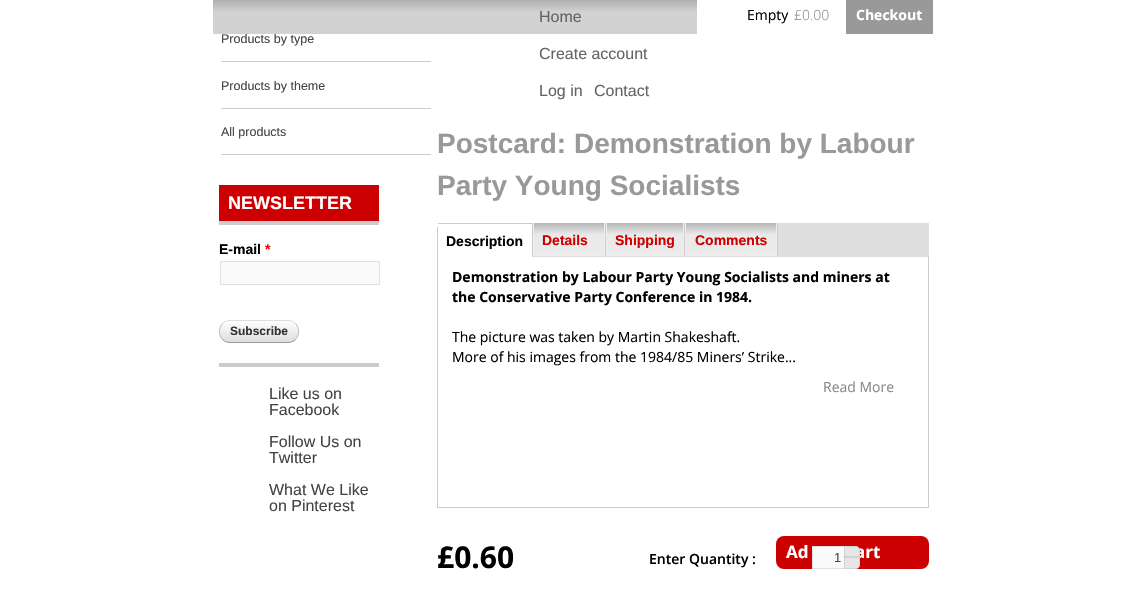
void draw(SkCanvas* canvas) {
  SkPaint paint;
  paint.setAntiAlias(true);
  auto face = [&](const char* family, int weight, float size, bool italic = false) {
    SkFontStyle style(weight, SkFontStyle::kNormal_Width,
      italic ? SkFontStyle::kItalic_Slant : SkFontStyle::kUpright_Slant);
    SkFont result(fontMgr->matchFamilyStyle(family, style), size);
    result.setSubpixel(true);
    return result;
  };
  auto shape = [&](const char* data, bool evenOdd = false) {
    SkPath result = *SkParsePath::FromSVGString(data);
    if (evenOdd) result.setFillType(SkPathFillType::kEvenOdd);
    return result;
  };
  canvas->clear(0xffffffff);
  {
    const struct { float x, y, w, h; SkColor color; } items[] = {
      {846, 0, 87, 34, 0xff999999},
      {221, 61, 210, 1, 0xffcccccc},
      {221, 108, 210, 1, 0xffcccccc},
      {221, 154, 210, 1, 0xffcccccc},
      {219, 363, 160, 4, 0xffcccccc},
      {219, 185, 160, 36, 0xffcc0000},
      {219, 221, 160, 4, 0xffcccccc},
    };
    for (auto [x, y, w, h, color] : items) {
      paint.setColor(color);
      canvas->drawRect(SkRect::MakeXYWH(x, y, w, h), paint);
    }
  }
  paint.setColor(0xfffbfafa);
  canvas->drawRect(SkRect::MakeXYWH(220.5f, 261.5f, 159, 23), paint);
  paint.setStroke(true);
  paint.setStrokeWidth(1);
  paint.setColor(0xffe0e0e0);
  canvas->drawRect(SkRect::MakeXYWH(220.5f, 261.5f, 159, 23), paint);
  canvas->save();
  canvas->clipPath(shape("M230 320H288C294 320 299 325 299 331V332C299 338 294 343 288 343H230C224 343 219 338 219 332V331C219 325 224 320 230 320Z"), true);
  paint.setStroke(false);
  {
    const SkColor colors[] = {0xffffffff, 0xffdddddd};
    const float stops[] = {0, 1};
    const SkPoint ends[] = {{220, 321}, {220, 342}};
    paint.setShader(SkGradientShader::MakeLinear(ends, colors, stops, 2, SkTileMode::kClamp));
    paint.setAlpha(255);
  }
  canvas->drawRect(SkRect::MakeXYWH(219, 321, 80, 21), paint);
  canvas->restore();
  paint.setStroke(true);
  paint.setShader(nullptr);
  paint.setColor(0xffdddddd);
  canvas->drawPath(shape("M222.5 323.5C224.5 321.5 227 320.5 230 320.5H288C291 320.5 293.5 321.5 295.5 323.5"), paint);
  paint.setColor(0xffbbbbbb);
  canvas->drawPath(shape("M295.5 323.5C299.5 327.5 299.5 335.5 295.5 339.5"), paint);
  paint.setColor(0xff999999);
  canvas->drawPath(shape("M295.5 339.5C293.5 341.5 291 342.5 288 342.5H230C227 342.5 224.5 341.5 222.5 339.5"), paint);
  paint.setColor(0xffbbbbbb);
  canvas->drawPath(shape("M222.5 339.5C218.5 335.5 218.5 327.5 222.5 323.5"), paint);
  paint.setStroke(false);
  {
    const struct { float x, y, w, h; SkColor color; } items[] = {
      {928, 257, 1, 251, 0xffcccccc},
      {437, 507, 492, 1, 0xffcccccc},
      {437, 227, 1, 281, 0xffcccccc},
      {533, 223, 396, 34, 0xffdedede},
      {532, 223, 1, 34, 0xffcccccc},
      {438, 223, 94, 1, 0xffcccccc},
      {533, 223, 72, 33, 0xffeeeeee},
      {605, 223, 1, 33, 0xffcccccc},
    };
    for (auto [x, y, w, h, color] : items) {
      paint.setColor(color);
      canvas->drawRect(SkRect::MakeXYWH(x, y, w, h), paint);
    }
  }
  {
    const SkColor colors[] = {0xffb6b6b6, 0xffeaeaea};
    const float stops[] = {0, 0.37f};
    const SkPoint ends[] = {{569, 223}, {569, 255}};
    paint.setShader(SkGradientShader::MakeLinear(ends, colors, stops, 2, SkTileMode::kClamp));
    paint.setAlpha(255);
  }
  canvas->drawRect(SkRect::MakeXYWH(534, 223, 70, 32), paint);
  paint.setShader(nullptr);
  paint.setColor(0xffeeeeee);
  canvas->drawRect(SkRect::MakeXYWH(606, 223, 78, 33), paint);
  paint.setColor(0xffcccccc);
  canvas->drawRect(SkRect::MakeXYWH(684, 223, 1, 33), paint);
  {
    const SkColor colors[] = {0xffb6b6b6, 0xffeaeaea};
    const float stops[] = {0, 0.37f};
    const SkPoint ends[] = {{645, 223}, {645, 255}};
    paint.setShader(SkGradientShader::MakeLinear(ends, colors, stops, 2, SkTileMode::kClamp));
    paint.setAlpha(255);
  }
  canvas->drawRect(SkRect::MakeXYWH(607, 223, 76, 32), paint);
  paint.setShader(nullptr);
  paint.setColor(0xffeeeeee);
  canvas->drawRect(SkRect::MakeXYWH(685, 223, 92, 33), paint);
  paint.setColor(0xffcccccc);
  canvas->drawRect(SkRect::MakeXYWH(777, 223, 1, 33), paint);
  {
    const SkColor colors[] = {0xffb6b6b6, 0xffeaeaea};
    const float stops[] = {0, 0.37f};
    const SkPoint ends[] = {{731, 223}, {731, 255}};
    paint.setShader(SkGradientShader::MakeLinear(ends, colors, stops, 2, SkTileMode::kClamp));
    paint.setAlpha(255);
  }
  canvas->drawRect(SkRect::MakeXYWH(686, 223, 90, 32), paint);
  paint.setShader(nullptr);
  paint.setColor(0xffcc0000);
  canvas->drawRoundRect(SkRect::MakeXYWH(776, 536, 153, 33), 8, 8, paint);
  paint.setColor(0xfffbfafa);
  canvas->drawRect(SkRect::MakeXYWH(813, 547, 31, 21), paint);
  paint.setStroke(true);
  paint.setColor(0xffe0e0e0);
  canvas->drawRect(SkRect::MakeXYWH(812.5f, 546.5f, 39, 22), paint);
  auto f0 = face("Liberation Sans", 400, 16);
  paint.setStroke(false);
  paint.setColor(0xff646464);
  {
    const struct { const char* s; float x, y; } items[] = {
      {"Create account", 539, 59},
      {"Log in", 539, 96},
      {"Contact", 594, 96},
    };
    for (auto [s, x, y] : items) {
      canvas->drawString(s, x, y, f0, paint);
    }
  }
  auto f1 = face("Open Sans", 400, 14);
  paint.setColor(0xff000000);
  canvas->drawString("Empty", 747, 20, f1, paint);
  auto f2 = face("Open Sans", 300, 14);
  paint.setColor(0xff898a8c);
  canvas->drawString("£0.00", 794, 20, f2, paint);
  auto f3 = face("Open Sans", 700, 14);
  paint.setColor(0xffffffff);
  canvas->drawString("Checkout", 856, 20, f3, paint);
  auto f4 = face("Liberation Sans", 400, 12.5f);
  paint.setColor(0xff444444);
  canvas->drawString("Products by type", 221, 43, f4, paint);
  {
    const SkColor colors[] = {0xffafafaf, 0xffd2d2d2};
    const float stops[] = {0, 0.35f};
    const SkPoint ends[] = {{573, 0}, {573, 34}};
    paint.setShader(SkGradientShader::MakeLinear(ends, colors, stops, 2, SkTileMode::kClamp));
    paint.setAlpha(255);
  }
  canvas->drawRect(SkRect::MakeXYWH(213, 0, 484, 34), paint);
  paint.setShader(nullptr);
  paint.setColor(0xff646464);
  canvas->drawString("Home", 539, 22, f0, paint);
  paint.setColor(0xff444444);
  canvas->drawString("Products by theme", 221, 90, f4, paint);
  canvas->drawString("All products", 221, 136, f4, paint);
  auto f5 = face("Liberation Sans", 700, 18);
  paint.setColor(0xffffffff);
  canvas->drawString("NEWSLETTER", 228, 209, f5, paint);
  auto f6 = face("Liberation Sans", 700, 14);
  paint.setColor(0xff000000);
  canvas->drawString("E-mail", 219, 254, f6, paint);
  paint.setColor(0xffff0000);
  canvas->drawString("*", 265, 254, f6, paint);
  auto f7 = face("Liberation Sans", 700, 12);
  paint.setColor(0xff333333);
  canvas->drawString("Subscribe", 230, 335, f7, paint);
  paint.setColor(0xff444444);
  {
    const struct { const char* s; float x, y; } items[] = {
      {"Like us on", 269, 399},
      {"Facebook", 269, 415},
      {"Follow Us on", 269, 447},
      {"Twitter", 269, 463},
      {"What We Like", 269, 495},
      {"on Pinterest", 269, 511},
    };
    for (auto [s, x, y] : items) {
      canvas->drawString(s, x, y, f0, paint);
    }
  }
  auto f8 = face("Liberation Sans", 700, 28);
  paint.setColor(0xff999999);
  canvas->drawString("Postcard: Demonstration by Labour", 437, 153, f8, paint);
  canvas->drawString("Party Young Socialists", 437, 195, f8, paint);
  paint.setColor(0xff000000);
  canvas->drawString("Description", 446, 246, f6, paint);
  paint.setColor(0xffcc0000);
  {
    const struct { const char* s; float x, y; } items[] = {
      {"Details", 542, 245},
      {"Shipping", 615, 245},
      {"Comments", 695, 245},
    };
    for (auto [s, x, y] : items) {
      canvas->drawString(s, x, y, f6, paint);
    }
  }
  paint.setColor(0xff000000);
  canvas->drawString("Demonstration by Labour Party Young Socialists and miners at", 452, 282, f3, paint);
  canvas->drawString("the Conservative Party Conference in 1984.", 452, 302, f3, paint);
  canvas->drawString("The picture was taken by Martin Shakeshaft.", 452, 342, f1, paint);
  canvas->drawString("More of his images from the 1984/85 Miners’ Strike...", 452, 362, f1, paint);
  paint.setColor(0xff898a8c);
  canvas->drawString("Read More", 823, 392, f1, paint);
  auto f9 = face("Open Sans", 700, 30);
  paint.setColor(0xff000000);
  canvas->drawString("£0.60", 437, 568, f9, paint);
  auto f10 = face("Open Sans", 700, 17);
  paint.setColor(0xffffffff);
  canvas->drawString("Ad", 786, 558, f10, paint);
  canvas->drawString("art", 855, 558, f10, paint);
  auto f11 = face("Open Sans", 600, 14);
  paint.setColor(0xff000000);
  canvas->drawString("Enter Quantity :", 649, 564, f11, paint);
  auto f12 = face("Liberation Sans", 400, 13);
  paint.setColor(0xff4c4c4c);
  canvas->drawString("1", 834, 562, f12, paint);
  paint.setColor(0xffe6e6e6);
  canvas->drawPath(shape("M844.5 546.5H856C858 546.5 859.5 548 859.5 550V556.5H844.5Z"), paint);
  paint.setStroke(true);
  paint.setColor(0xffd3d3d3);
  canvas->drawPath(shape("M844.5 546.5H856C858 546.5 859.5 548 859.5 550V556.5H844.5Z"), paint);
  paint.setStroke(false);
  paint.setColor(0xffe6e6e6);
  canvas->drawPath(shape("M844.5 557.5H859.5V565C859.5 567 858 568.5 856 568.5H844.5Z"), paint);
  paint.setStroke(true);
  paint.setColor(0xffd3d3d3);
  canvas->drawPath(shape("M844.5 557.5H859.5V565C859.5 567 858 568.5 856 568.5H844.5Z"), paint);
}
